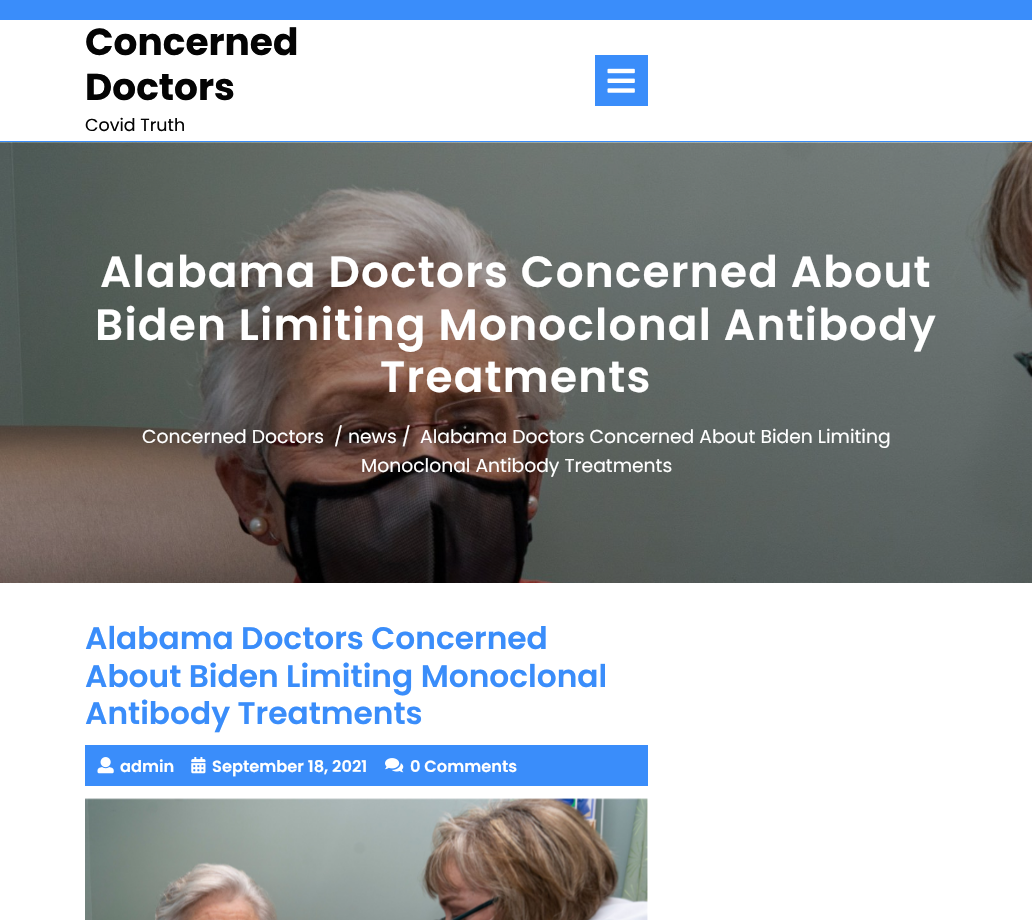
void draw(SkCanvas* canvas) {
  SkPaint paint;
  paint.setAntiAlias(true);
  auto face = [&](const char* family, int weight, float size, bool italic = false) {
    SkFontStyle style(weight, SkFontStyle::kNormal_Width,
      italic ? SkFontStyle::kItalic_Slant : SkFontStyle::kUpright_Slant);
    SkFont result(fontMgr->matchFamilyStyle(family, style), size);
    result.setSubpixel(true);
    return result;
  };
  auto writeSpaced = [&](const char* s, float x, float y, const SkFont& font, const SkPaint& ink, float letter, float word) {
    std::vector<SkGlyphID> glyphs(font.countText(s, strlen(s), SkTextEncoding::kUTF8));
    std::vector<float> xs(glyphs.size());
    font.textToGlyphs(s, strlen(s), SkTextEncoding::kUTF8, glyphs);
    font.getXPos(glyphs, xs, x);
    float extra = 0;
    for (size_t i = 0; i < glyphs.size(); i++) {
      xs[i] += extra;
      extra += letter + word * (glyphs[i] == font.unicharToGlyph(' '));
    }
    canvas->drawTextBlob(SkTextBlob::MakeFromPosHGlyphs(glyphs, xs, y, font), 0, 0, ink);
  };
  auto paste = [&](const char* path, float x, float y, float w, float h) {
    auto image = SkImages::DeferredFromEncodedData(SkData::MakeFromFileName(path));
    canvas->drawImageRect(image, SkRect::MakeXYWH(x, y, w, h), SkSamplingOptions());
  };
  canvas->clear(0xffffffff);
  {
    const struct { float x, y, w, h; SkColor color; } items[] = {
      {0, 0, 1032, 142, 0xff3a8dfa},
      {0, 20, 1032, 121, 0xffffffff},
      {595, 55, 53, 51, 0xff3a8dfa},
    };
    for (auto [x, y, w, h, color] : items) {
      paint.setColor(color);
      canvas->drawRect(SkRect::MakeXYWH(x, y, w, h), paint);
    }
  }
  paste("img/1.png", 607, 68, 28, 25);
  paste("img/2.png", 0, 142, 1032, 441);
  canvas->drawRect(SkRect::MakeXYWH(85, 745, 563, 41), paint);
  paste("img/3.png", 97, 757, 17, 17);
  paste("img/4.png", 191, 757, 15, 17);
  paste("img/5.png", 385, 758, 19, 15);
  paste("img/6.png", 85, 798, 563, 122);
  auto f0 = face("Poppins", 700, 37.5f);
  paint.setColor(0xff040404);
  canvas->drawString("Concerned", 85, 55, f0, paint);
  canvas->drawString("Doctors", 85, 100, f0, paint);
  auto f1 = face("Poppins", 400, 17.5f);
  canvas->drawString("Covid Truth", 85, 131, f1, paint);
  auto f2 = face("Poppins", 600, 43.75f);
  paint.setColor(0xffffffff);
  {
    const struct { const char* s; float x, y; } items[] = {
      {"Alabama Doctors Concerned About", 100, 287},
      {"Biden Limiting Monoclonal Antibody", 95, 340},
      {"Treatments", 380, 392},
    };
    for (auto [s, x, y] : items) {
      writeSpaced(s, x, y, f2, paint, 1.25f, 0);
    }
  }
  auto f3 = face("Poppins", 400, 18.75f);
  {
    const struct { const char* s; float x, y; } items[] = {
      {"Concerned Doctors", 142, 443},
      {"/ news /", 334, 443},
      {"Alabama Doctors Concerned About Biden Limiting", 420, 443},
      {"Monoclonal Antibody Treatments", 361, 472},
    };
    for (auto [s, x, y] : items) {
      canvas->drawString(s, x, y, f3, paint);
    }
  }
  auto f4 = face("Poppins", 600, 31.25f);
  paint.setColor(0xff3a8dfa);
  {
    const struct { const char* s; float x, y; } items[] = {
      {"Alabama Doctors Concerned", 85, 649},
      {"About Biden Limiting Monoclonal", 85, 687},
      {"Antibody Treatments", 85, 724},
    };
    for (auto [s, x, y] : items) {
      canvas->drawString(s, x, y, f4, paint);
    }
  }
  auto f5 = face("Poppins", 600, 16.25f);
  paint.setColor(0xffffffff);
  {
    const struct { const char* s; float x, y; } items[] = {
      {"admin", 120, 772},
      {"September 18, 2021", 212, 772},
      {"0 Comments", 410, 772},
    };
    for (auto [s, x, y] : items) {
      canvas->drawString(s, x, y, f5, paint);
    }
  }
}
